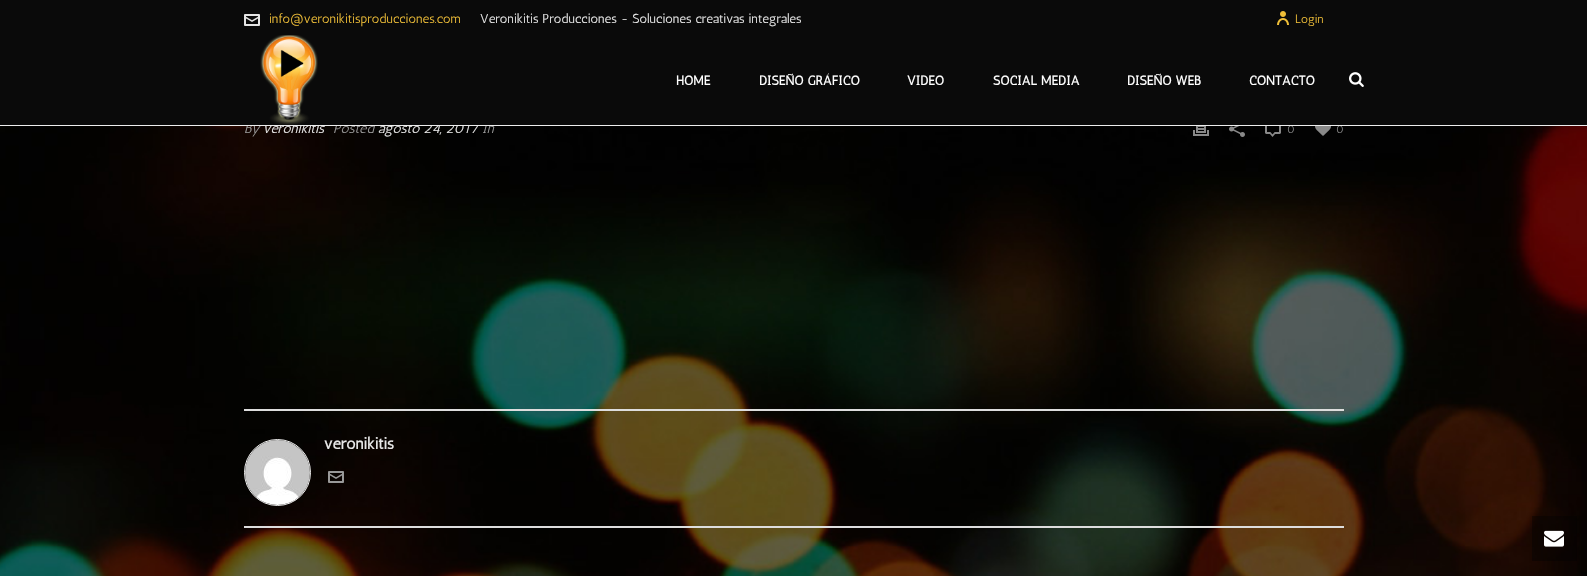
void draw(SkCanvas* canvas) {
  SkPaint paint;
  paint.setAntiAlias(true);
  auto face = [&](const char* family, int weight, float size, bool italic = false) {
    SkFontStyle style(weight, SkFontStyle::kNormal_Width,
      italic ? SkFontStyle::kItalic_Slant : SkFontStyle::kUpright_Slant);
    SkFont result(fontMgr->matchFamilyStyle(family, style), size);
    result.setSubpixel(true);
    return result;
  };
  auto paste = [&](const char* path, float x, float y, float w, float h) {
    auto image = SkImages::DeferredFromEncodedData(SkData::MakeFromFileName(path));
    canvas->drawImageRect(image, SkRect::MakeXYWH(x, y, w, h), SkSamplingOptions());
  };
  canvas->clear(0xffffffff);
  paste("img/11.png", 0, 126, 1587, 450);
  paste("img/5.png", 1193, 126, 16, 10);
  paste("img/6.png", 1229, 126, 16, 11);
  paste("img/7.png", 1265, 126, 16, 11);
  paste("img/8.png", 1315, 126, 16, 10);
  paint.setColor(0xffdddddd);
  canvas->drawRect(SkRect::MakeXYWH(244, 409, 1100, 2), paint);
  canvas->drawRect(SkRect::MakeXYWH(244, 526, 1100, 2), paint);
  paint.setStroke(true);
  paint.setStrokeWidth(1);
  paint.setColor(0xffeeeeee);
  canvas->drawCircle(277.5f, 472.5f, 33, paint);
  paste("img/9.png", 245, 440, 65, 65);
  paste("img/10.png", 328, 471, 16, 12);
  paint.setStroke(false);
  paint.setColor(0x66000000);
  canvas->drawRect(SkRect::MakeXYWH(1532, 516, 45, 45), paint);
  paste("img/12.png", 1544, 530, 20, 17);
  auto f0 = face("Antic", 400, 14, true);
  paint.setColor(0xff999999);
  canvas->drawString("By", 244, 133, f0, paint);
  paint.setColor(0xffe8e8e8);
  canvas->drawString("veronikitis", 263, 133, f0, paint);
  paint.setColor(0xff999999);
  canvas->drawString("Posted", 333, 133, f0, paint);
  paint.setColor(0xffe8e8e8);
  canvas->drawString("agosto 24, 2017", 378, 133, f0, paint);
  paint.setColor(0xff999999);
  canvas->drawString("In", 482, 133, f0, paint);
  paint.setColor(0xff0a0a0a);
  canvas->drawRect(SkRect::MakeXYWH(0, 0, 1587, 125), paint);
  paste("img/2.png", 1277, 11, 12, 14);
  auto f1 = face("Antic", 400, 12);
  paint.setColor(0xffefbe37);
  canvas->drawString("Login", 1295, 23, f1, paint);
  paste("img/1.png", 244, 14, 16, 12);
  auto f2 = face("Antic", 400, 13);
  paint.setColor(0xffe8e8e8);
  canvas->drawString("Veronikitis Producciones - Soluciones creativas integrales", 480, 23, f2, paint);
  paint.setColor(0xffefbe37);
  canvas->drawString("info@veronikitisproducciones.com", 269, 23, f2, paint);
  paste("img/3.png", 260, 35, 58, 90);
  paste("img/4.png", 1349, 72, 15, 15);
  auto f3 = face("Antic", 700, 13);
  paint.setColor(0xffffffff);
  {
    const struct { const char* s; float x, y; } items[] = {
      {"CONTACTO", 1249, 85},
      {"DISEÑO WEB", 1127, 85},
      {"SOCIAL MEDIA", 993, 85},
      {"VIDEO", 907, 85},
      {"DISEÑO GRÁFICO", 759, 85},
      {"HOME", 676, 85},
    };
    for (auto [s, x, y] : items) {
      canvas->drawString(s, x, y, f3, paint);
    }
  }
  auto f4 = face("Antic", 400, 11);
  paint.setColor(0xff898989);
  canvas->drawString("0", 1287, 133, f4, paint);
  canvas->drawString("0", 1336, 133, f4, paint);
  paint.setColor(0xffededed);
  canvas->drawRect(SkRect::MakeXYWH(0, 125, 1587, 1), paint);
  auto f5 = face("Antic", 700, 16);
  paint.setColor(0xffe8e8e8);
  canvas->drawString("veronikitis", 324, 449, f5, paint);
}
